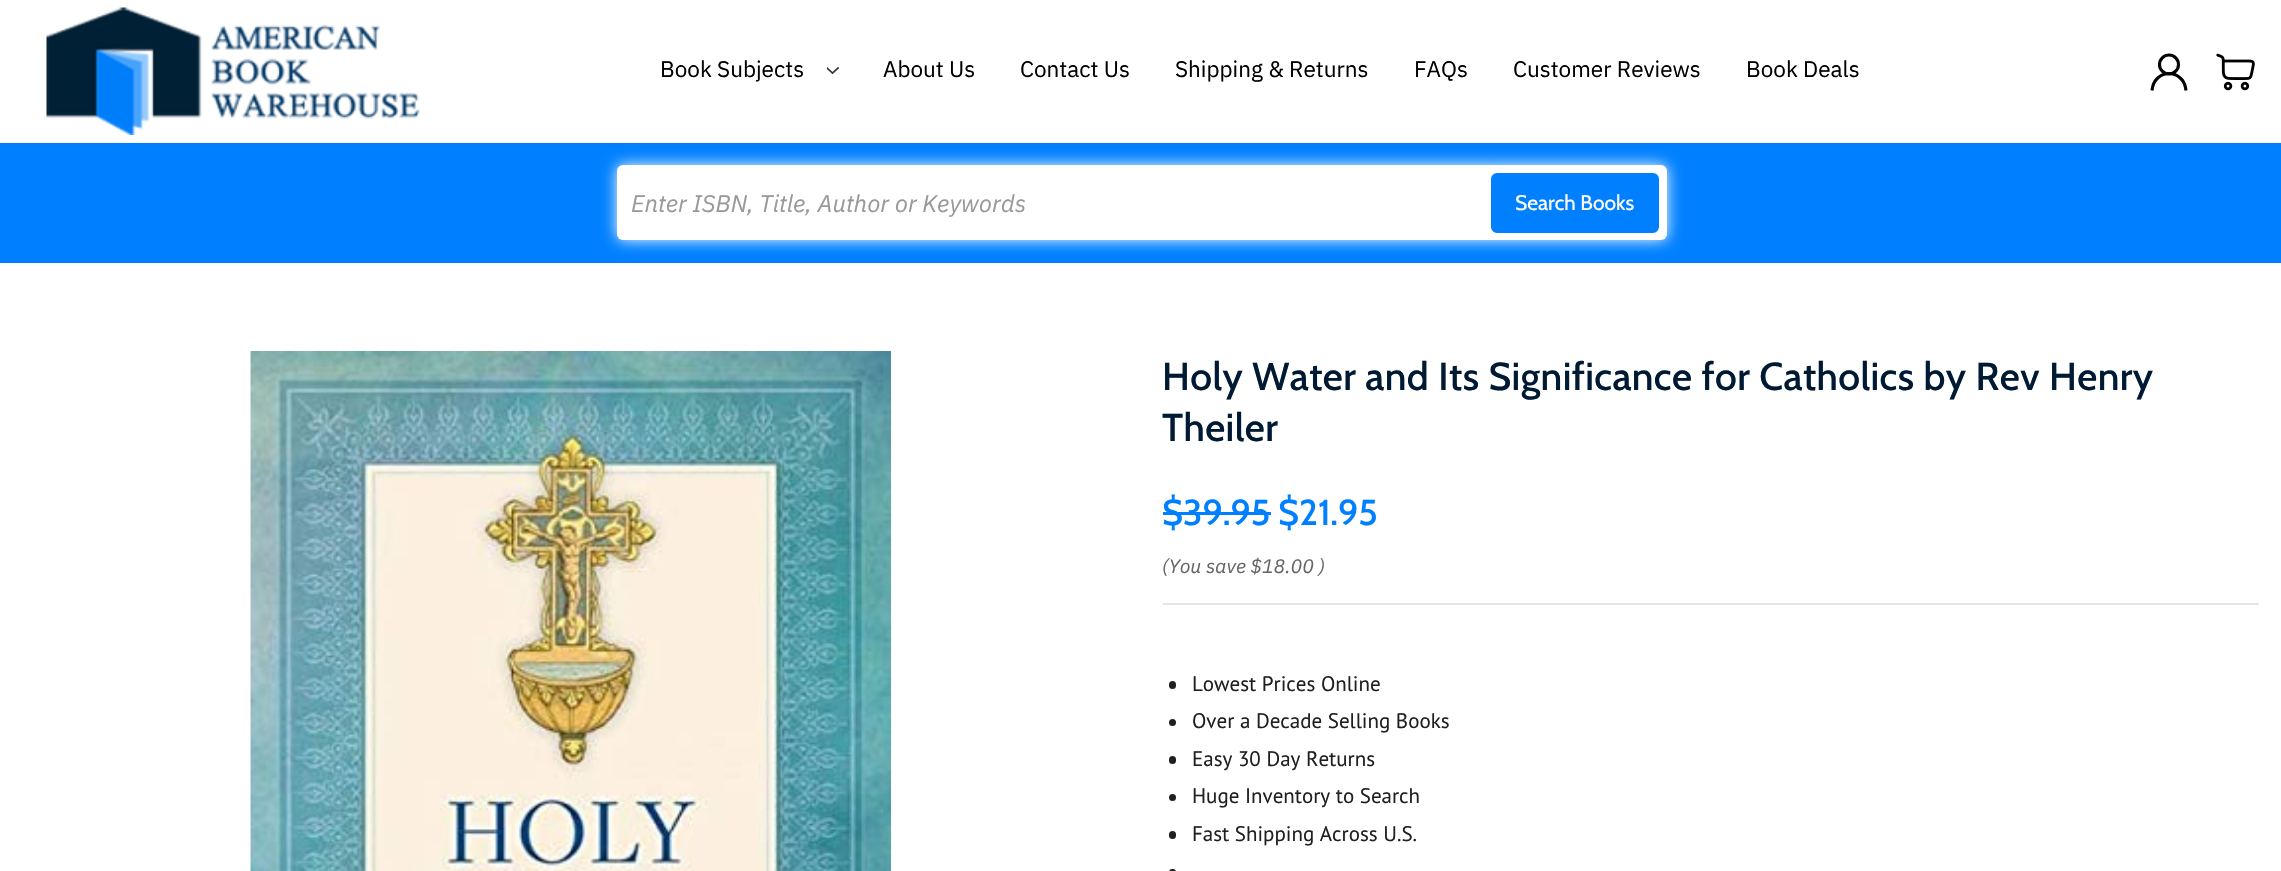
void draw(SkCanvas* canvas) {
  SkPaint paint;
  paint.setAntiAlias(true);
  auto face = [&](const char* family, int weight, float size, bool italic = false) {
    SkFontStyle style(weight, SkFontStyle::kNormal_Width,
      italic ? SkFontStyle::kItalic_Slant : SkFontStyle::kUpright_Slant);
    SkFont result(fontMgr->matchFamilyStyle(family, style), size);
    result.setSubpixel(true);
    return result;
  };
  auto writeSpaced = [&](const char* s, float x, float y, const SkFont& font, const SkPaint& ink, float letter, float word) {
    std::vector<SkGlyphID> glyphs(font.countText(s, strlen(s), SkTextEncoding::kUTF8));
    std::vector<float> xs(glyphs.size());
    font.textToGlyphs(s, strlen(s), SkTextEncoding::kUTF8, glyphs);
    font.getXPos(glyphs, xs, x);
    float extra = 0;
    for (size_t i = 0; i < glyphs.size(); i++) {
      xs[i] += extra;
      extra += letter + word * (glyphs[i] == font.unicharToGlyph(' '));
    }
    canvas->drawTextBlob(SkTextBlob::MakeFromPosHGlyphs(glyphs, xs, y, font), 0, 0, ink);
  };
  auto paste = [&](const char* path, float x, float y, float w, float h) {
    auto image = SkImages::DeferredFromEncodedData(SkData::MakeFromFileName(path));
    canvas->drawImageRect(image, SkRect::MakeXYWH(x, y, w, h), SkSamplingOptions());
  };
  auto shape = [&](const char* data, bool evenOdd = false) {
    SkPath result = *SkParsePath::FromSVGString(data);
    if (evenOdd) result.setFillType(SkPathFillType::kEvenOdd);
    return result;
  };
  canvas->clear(0xffffffff);
  paste("img/1.png", 46, 7, 374, 128);
  paste("img/2.png", 827, 66, 12, 9);
  paint.setStroke(true);
  paint.setStrokeWidth(3.1f);
  paint.setColor(0xff020202);
  canvas->drawCircle(2169, 64.5f, 9.5f, paint);
  canvas->drawPath(shape("M2152 90.5L2152.5 87.5C2154 79.5 2161 73.5 2169 73.5C2177 73.5 2184 79.5 2185.5 87.5L2186 90.5"), paint);
  paste("img/3.png", 2216, 53, 39, 38);
  paint.setStroke(false);
  paint.setColor(0xff0080ff);
  canvas->drawRect(SkRect::MakeXYWH(0, 143, 2281, 120), paint);
  paint.setColor(0xffffffff);
  paint.setMaskFilter(SkMaskFilter::MakeBlur(kNormal_SkBlurStyle, 7.5f));
  canvas->drawRoundRect(SkRect::MakeXYWH(617, 165, 1050, 75), 6, 6, paint);
  paint.setMaskFilter(nullptr);
  canvas->drawRoundRect(SkRect::MakeXYWH(617, 165, 1050, 75), 6, 6, paint);
  paint.setColor(0xff0080ff);
  canvas->drawRoundRect(SkRect::MakeXYWH(1492, 174, 166, 58), 5, 5, paint);
  paint.setStroke(true);
  paint.setStrokeWidth(2);
  canvas->drawRoundRect(SkRect::MakeXYWH(1492, 174, 166, 58), 5, 5, paint);
  paste("img/4.png", 250, 351, 641, 520);
  paint.setStroke(false);
  paint.setColor(0xffe5e5e5);
  canvas->drawRect(SkRect::MakeXYWH(1163, 603, 1096, 2), paint);
  paint.setColor(0xff0080ff);
  canvas->drawRect(SkRect::MakeXYWH(1163, 512, 108, 3), paint);
  paint.setColor(0xff202020);
  canvas->drawRoundRect(SkRect::MakeXYWH(1169, 681, 7, 8), 3.5f, 3.5f, paint);
  canvas->drawCircle(1172.5f, 722.5f, 3.5f, paint);
  canvas->drawRoundRect(SkRect::MakeXYWH(1169, 756, 7, 8), 3.5f, 3.5f, paint);
  canvas->drawCircle(1172.5f, 797.5f, 3.5f, paint);
  canvas->drawRoundRect(SkRect::MakeXYWH(1169, 831, 7, 8), 3.5f, 3.5f, paint);
  canvas->drawRoundRect(SkRect::MakeXYWH(1169, 869, 7, 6), 3.5f, 3.5f, paint);
  auto f0 = face("IBM Plex Sans", 400, 22.5f);
  paint.setColor(0xff000000);
  {
    const struct { const char* s; float x, y; } items[] = {
      {"Book Subjects", 660, 77},
      {"About Us", 883, 77},
      {"Contact Us", 1020, 77},
      {"Shipping & Returns", 1175, 77},
      {"FAQs", 1414, 77},
      {"Customer Reviews", 1513, 77},
      {"Book Deals", 1746, 77},
    };
    for (auto [s, x, y] : items) {
      canvas->drawString(s, x, y, f0, paint);
    }
  }
  auto f1 = face("IBM Plex Sans", 400, 24, true);
  paint.setColor(0xff999999);
  canvas->drawString("Enter ISBN, Title, Author or Keywords", 631, 212, f1, paint);
  auto f2 = face("Cabin", 400, 21);
  paint.setColor(0xffffffff);
  canvas->drawString("Search Books", 1515, 210, f2, paint);
  auto f3 = face("Cabin", 500, 39);
  paint.setColor(0xff001a33);
  writeSpaced("Holy Water and Its Significance for Catholics by Rev Henry", 1162, 390, f3, paint, 0.38f, 0);
  writeSpaced("Theiler", 1162, 441, f3, paint, 0.38f, 0);
  auto f4 = face("Cabin", 500, 36);
  paint.setColor(0xff0080ff);
  canvas->drawString("$39.95", 1162, 525, f4, paint);
  canvas->drawString("$21.95", 1278, 525, f4, paint);
  auto f5 = face("IBM Plex Sans", 400, 19.5f, true);
  paint.setColor(0xff666666);
  canvas->drawString("(You save $18.00 )", 1162, 573, f5, paint);
  auto f6 = face("PT Sans", 400, 21);
  paint.setColor(0xff202020);
  {
    const struct { const char* s; float x, y; } items[] = {
      {"Lowest Prices Online", 1192, 691},
      {"Over a Decade Selling Books", 1192, 728},
      {"Easy 30 Day Returns", 1192, 766},
      {"Huge Inventory to Search", 1192, 803},
      {"Fast Shipping Across U.S.", 1192, 841},
    };
    for (auto [s, x, y] : items) {
      canvas->drawString(s, x, y, f6, paint);
    }
  }
}
